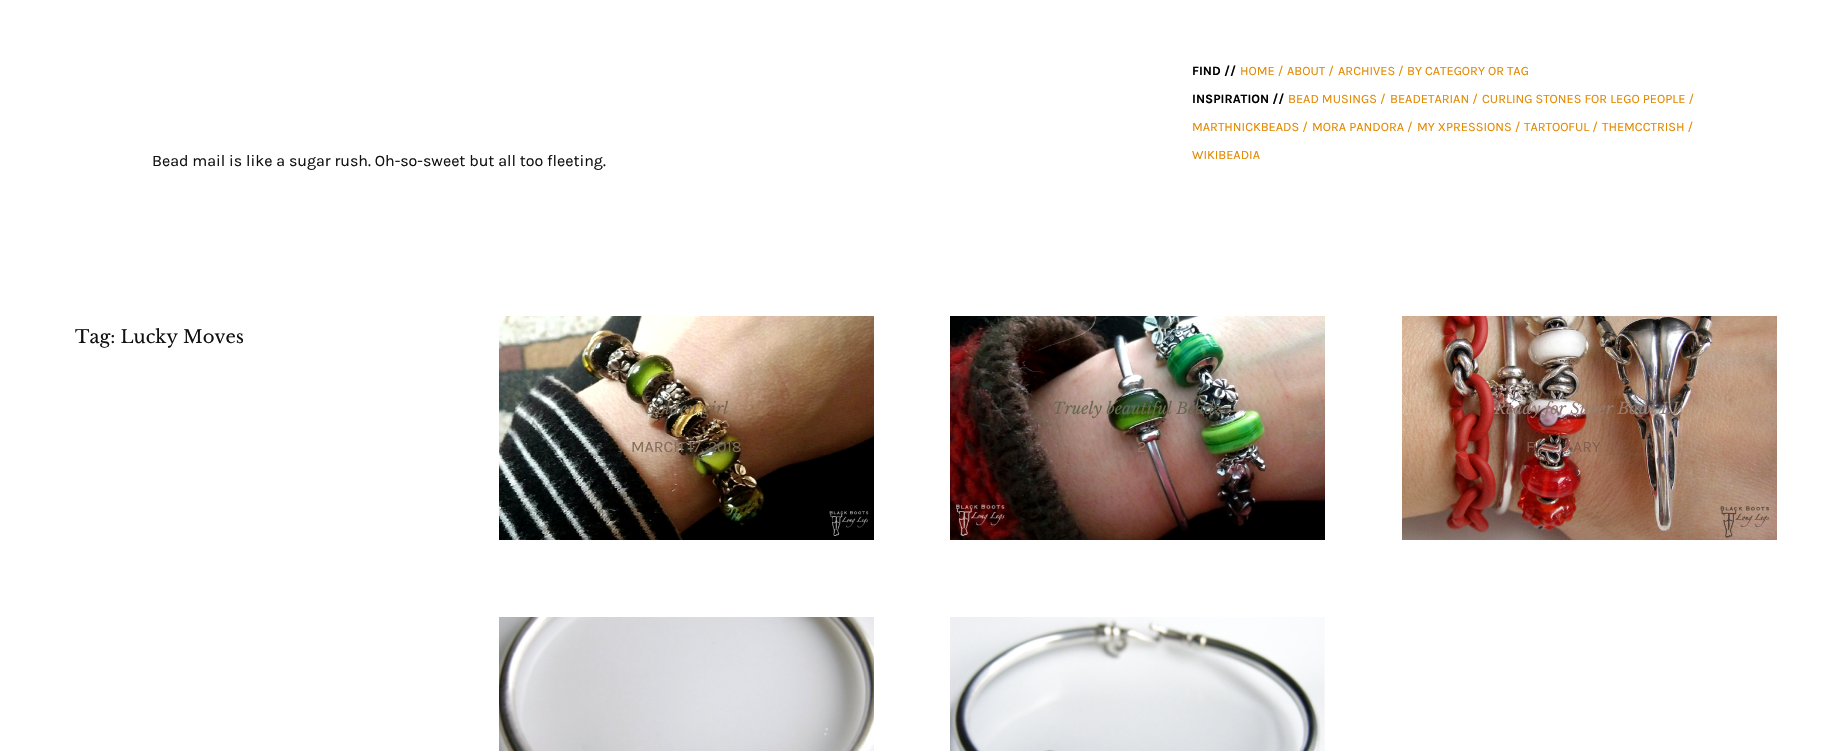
void draw(SkCanvas* canvas) {
  SkPaint paint;
  paint.setAntiAlias(true);
  auto face = [&](const char* family, int weight, float size, bool italic = false) {
    SkFontStyle style(weight, SkFontStyle::kNormal_Width,
      italic ? SkFontStyle::kItalic_Slant : SkFontStyle::kUpright_Slant);
    SkFont result(fontMgr->matchFamilyStyle(family, style), size);
    result.setSubpixel(true);
    return result;
  };
  auto paste = [&](const char* path, float x, float y, float w, float h) {
    auto image = SkImages::DeferredFromEncodedData(SkData::MakeFromFileName(path));
    canvas->drawImageRect(image, SkRect::MakeXYWH(x, y, w, h), SkSamplingOptions());
  };
  canvas->clear(0xffffffff);
  paste("img/1.png", 499, 316, 375, 224);
  paste("img/2.png", 950, 316, 375, 224);
  paste("img/3.png", 1402, 316, 375, 224);
  paste("img/4.png", 499, 617, 375, 134);
  paste("img/5.png", 950, 617, 375, 134);
  auto f0 = face("Karla", 700, 12.75f);
  paint.setColor(0xff000000);
  canvas->drawString("FIND //", 1192, 75, f0, paint);
  auto f1 = face("Karla", 400, 12.75f);
  paint.setColor(0xffe38900);
  {
    const struct { const char* s; float x, y; } items[] = {
      {"HOME /", 1240, 75},
      {"ABOUT /", 1287, 75},
      {"ARCHIVES /", 1338, 75},
      {"BY CATEGORY OR TAG", 1407, 75},
      {"BEAD MUSINGS /", 1288, 103},
      {"BEADETARIAN /", 1390, 103},
      {"CURLING STONES FOR LEGO PEOPLE /", 1482, 103},
      {"MARTHNICKBEADS /", 1192, 131},
      {"MORA PANDORA /", 1312, 131},
      {"MY XPRESSIONS /", 1417, 131},
      {"TARTOOFUL /", 1524, 131},
      {"THEMCCTRISH /", 1602, 131},
      {"WIKIBEADIA", 1192, 159},
    };
    for (auto [s, x, y] : items) {
      canvas->drawString(s, x, y, f1, paint);
    }
  }
  paint.setColor(0xff000000);
  canvas->drawString("INSPIRATION //", 1192, 103, f0, paint);
  auto f2 = face("Karla", 400, 16);
  paint.setColor(0xff111111);
  canvas->drawString("Bead mail is like a sugar rush. Oh-so-sweet but all too fleeting.", 152, 166, f2, paint);
  auto f3 = face("Libre Baskerville", 400, 18);
  canvas->drawString("Tag: Lucky Moves", 75, 343, f3, paint);
  auto f4 = face("Libre Baskerville", 400, 16, true);
  paint.setColor(0xff796750);
  canvas->drawString("Golden girl", 644, 414, f4, paint);
  paint.setColor(0xff806d58);
  canvas->drawString("MARCH 17, 2018", 631, 452, f2, paint);
  paint.setColor(0xff696751);
  canvas->drawString("Truely beautiful Beadz", 1052, 414, f4, paint);
  paint.setColor(0xff95746c);
  canvas->drawString("2", 1137, 452, f2, paint);
  paint.setColor(0xff967b72);
  canvas->drawString("Ready for Super Bowl LI!", 1494, 414, f4, paint);
  paint.setColor(0xff855d4c);
  canvas->drawString("F", 1526, 452, f2, paint);
  canvas->drawString("ARY", 1573, 452, f2, paint);
  paint.setColor(0xffd5d6d9);
  canvas->drawString(":", 824, 735, f4, paint);
}
